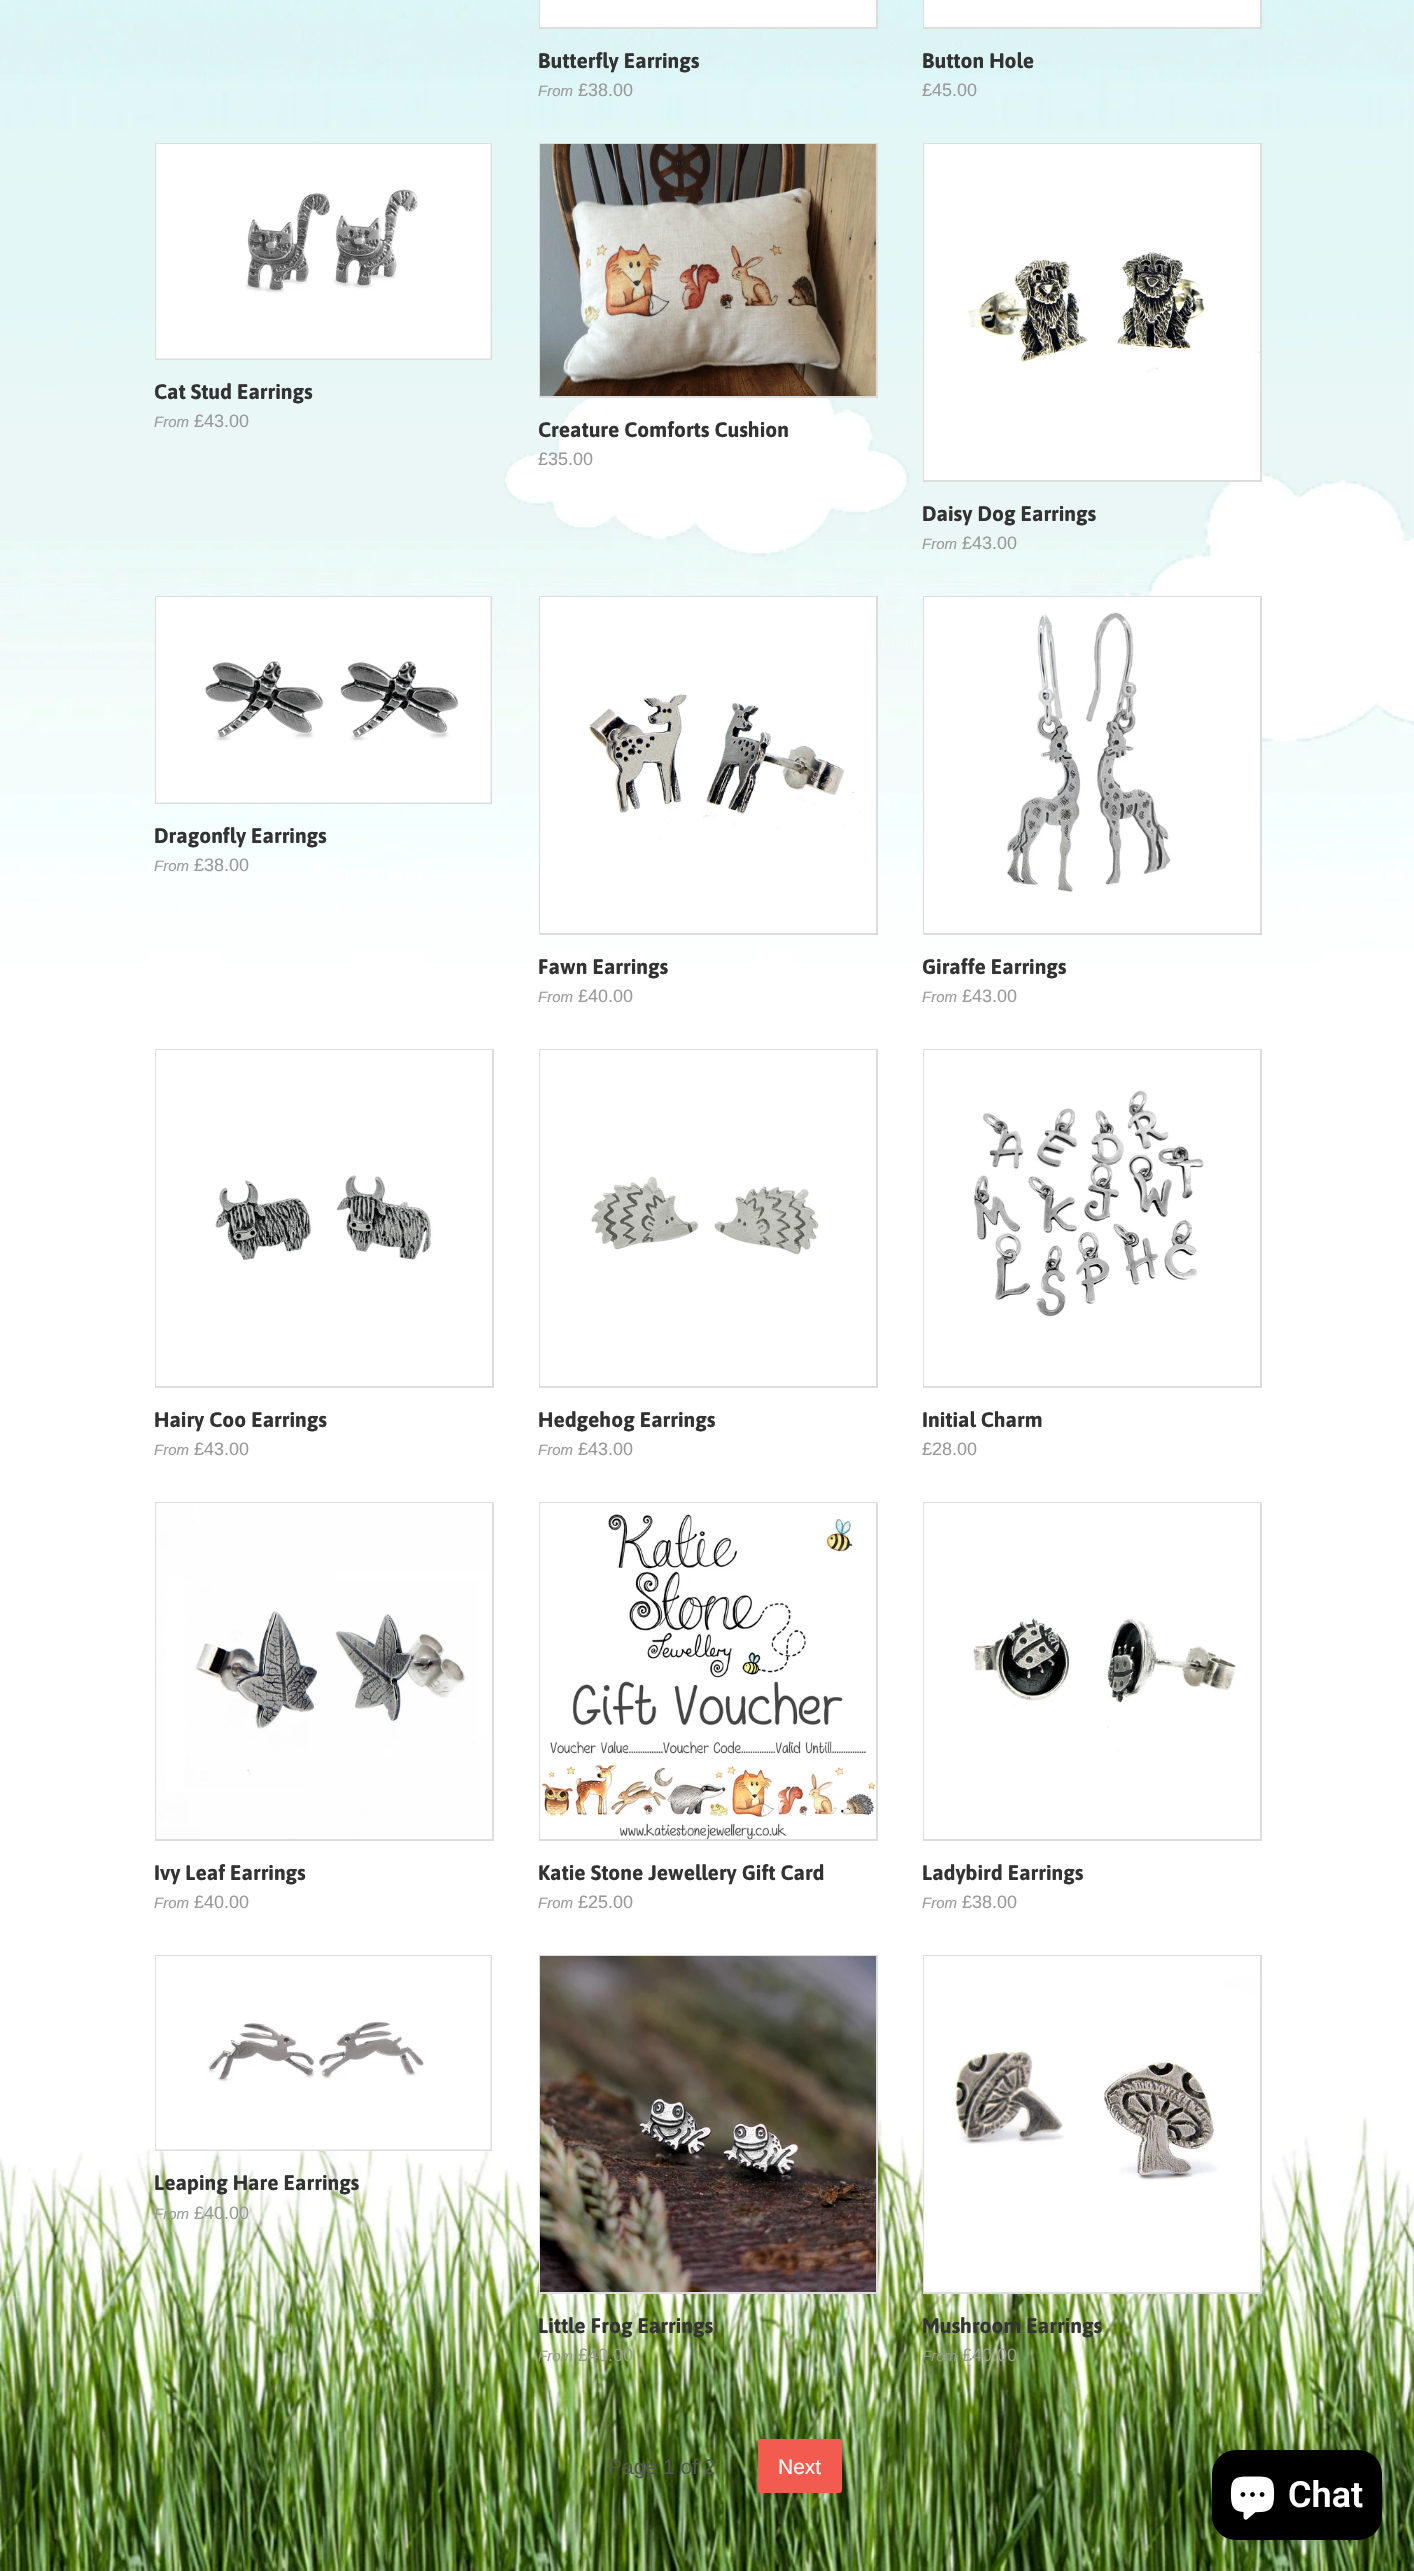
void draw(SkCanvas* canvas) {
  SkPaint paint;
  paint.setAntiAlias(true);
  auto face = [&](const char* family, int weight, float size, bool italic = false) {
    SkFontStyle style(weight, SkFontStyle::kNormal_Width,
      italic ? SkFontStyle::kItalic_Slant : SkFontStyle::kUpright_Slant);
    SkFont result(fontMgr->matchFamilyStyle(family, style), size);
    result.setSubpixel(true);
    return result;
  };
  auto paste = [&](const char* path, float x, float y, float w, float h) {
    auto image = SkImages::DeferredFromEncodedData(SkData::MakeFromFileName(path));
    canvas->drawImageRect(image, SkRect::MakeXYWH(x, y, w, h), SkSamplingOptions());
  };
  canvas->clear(0xffffffff);
  paste("img/1.png", 0, 0, 1414, 2571);
  paste("img/2.png", 1413, 2241, 1, 330);
  paint.setStroke(true);
  paint.setStrokeWidth(2);
  paint.setColor(0xffdddddd);
  canvas->drawRect(SkRect::MakeXYWH(540, -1, 337, 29), paint);
  paint.setStroke(false);
  paint.setColor(0xffffffff);
  canvas->drawRect(SkRect::MakeXYWH(540, 0, 336, 27), paint);
  paint.setStroke(true);
  paint.setColor(0xffdddddd);
  canvas->drawRect(SkRect::MakeXYWH(924, -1, 337, 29), paint);
  paint.setStroke(false);
  paint.setColor(0xffffffff);
  canvas->drawRect(SkRect::MakeXYWH(924, 0, 336, 27), paint);
  paint.setStroke(true);
  paint.setColor(0xffdddddd);
  canvas->drawRect(SkRect::MakeXYWH(156, 144, 335, 215), paint);
  paste("img/3.png", 156, 144, 335, 215);
  canvas->drawRect(SkRect::MakeXYWH(540, 144, 337, 253), paint);
  paste("img/4.png", 540, 144, 336, 252);
  canvas->drawRect(SkRect::MakeXYWH(924, 144, 337, 337), paint);
  paste("img/5.png", 924, 144, 336, 336);
  canvas->drawRect(SkRect::MakeXYWH(156, 597, 335, 206), paint);
  paste("img/6.png", 156, 597, 335, 206);
  canvas->drawRect(SkRect::MakeXYWH(540, 597, 337, 337), paint);
  paste("img/7.png", 540, 597, 336, 336);
  canvas->drawRect(SkRect::MakeXYWH(924, 597, 337, 337), paint);
  paste("img/8.png", 924, 597, 336, 336);
  canvas->drawRect(SkRect::MakeXYWH(156, 1050, 337, 337), paint);
  paste("img/9.png", 156, 1050, 336, 336);
  canvas->drawRect(SkRect::MakeXYWH(540, 1050, 337, 337), paint);
  paste("img/10.png", 540, 1050, 336, 336);
  canvas->drawRect(SkRect::MakeXYWH(924, 1050, 337, 337), paint);
  paste("img/11.png", 924, 1050, 336, 336);
  canvas->drawRect(SkRect::MakeXYWH(156, 1503, 337, 337), paint);
  paste("img/12.png", 156, 1503, 336, 336);
  canvas->drawRect(SkRect::MakeXYWH(540, 1503, 337, 337), paint);
  paste("img/13.png", 540, 1503, 336, 336);
  canvas->drawRect(SkRect::MakeXYWH(924, 1503, 337, 337), paint);
  paste("img/14.png", 924, 1503, 336, 336);
  canvas->drawRect(SkRect::MakeXYWH(156, 1956, 335, 194), paint);
  paste("img/15.png", 156, 1956, 335, 194);
  canvas->drawRect(SkRect::MakeXYWH(540, 1956, 337, 337), paint);
  paste("img/16.png", 540, 1956, 336, 336);
  canvas->drawRect(SkRect::MakeXYWH(924, 1956, 337, 337), paint);
  paste("img/17.png", 924, 1956, 336, 336);
  paint.setStroke(false);
  paint.setColor(0xfff45b4f);
  canvas->drawRoundRect(SkRect::MakeXYWH(758, 2439, 84, 54), 3, 3, paint);
  paint.setColor(0x26000000);
  paint.setMaskFilter(SkMaskFilter::MakeBlur(kNormal_SkBlurStyle, 4));
  canvas->drawRoundRect(SkRect::MakeXYWH(1212, 2450, 170, 90), 24, 24, paint);
  paint.setMaskFilter(nullptr);
  paint.setColor(0xff000000);
  canvas->drawRoundRect(SkRect::MakeXYWH(1212, 2450, 170, 90), 24, 24, paint);
  paste("img/18.png", 1230, 2476, 45, 44);
  auto f0 = face("Asap", 700, 21);
  paint.setColor(0xff333333);
  canvas->drawString("Butterfly Earrings", 538, 68, f0, paint);
  auto f1 = face("Liberation Sans", 400, 15, true);
  paint.setColor(0xff999999);
  canvas->drawString("From", 538, 96, f1, paint);
  auto f2 = face("Liberation Sans", 400, 18);
  canvas->drawString("£38.00", 578, 96, f2, paint);
  paint.setColor(0xff333333);
  canvas->drawString("Button Hole", 922, 68, f0, paint);
  paint.setColor(0xff999999);
  canvas->drawString("£45.00", 922, 96, f2, paint);
  paint.setColor(0xff333333);
  canvas->drawString("Cat Stud Earrings", 154, 399, f0, paint);
  paint.setColor(0xff999999);
  canvas->drawString("From", 154, 427, f1, paint);
  canvas->drawString("£43.00", 194, 427, f2, paint);
  paint.setColor(0xff333333);
  canvas->drawString("Creature Comforts Cushion", 538, 437, f0, paint);
  paint.setColor(0xff999999);
  canvas->drawString("£35.00", 538, 465, f2, paint);
  paint.setColor(0xff333333);
  canvas->drawString("Daisy Dog Earrings", 922, 521, f0, paint);
  paint.setColor(0xff999999);
  canvas->drawString("From", 922, 549, f1, paint);
  canvas->drawString("£43.00", 962, 549, f2, paint);
  paint.setColor(0xff333333);
  canvas->drawString("Dragonfly Earrings", 154, 843, f0, paint);
  paint.setColor(0xff999999);
  canvas->drawString("From", 154, 871, f1, paint);
  canvas->drawString("£38.00", 194, 871, f2, paint);
  paint.setColor(0xff333333);
  canvas->drawString("Fawn Earrings", 538, 974, f0, paint);
  paint.setColor(0xff999999);
  canvas->drawString("From", 538, 1002, f1, paint);
  canvas->drawString("£40.00", 578, 1002, f2, paint);
  paint.setColor(0xff333333);
  canvas->drawString("Giraffe Earrings", 922, 974, f0, paint);
  paint.setColor(0xff999999);
  canvas->drawString("From", 922, 1002, f1, paint);
  canvas->drawString("£43.00", 962, 1002, f2, paint);
  paint.setColor(0xff333333);
  canvas->drawString("Hairy Coo Earrings", 154, 1427, f0, paint);
  paint.setColor(0xff999999);
  canvas->drawString("From", 154, 1455, f1, paint);
  canvas->drawString("£43.00", 194, 1455, f2, paint);
  paint.setColor(0xff333333);
  canvas->drawString("Hedgehog Earrings", 538, 1427, f0, paint);
  paint.setColor(0xff999999);
  canvas->drawString("From", 538, 1455, f1, paint);
  canvas->drawString("£43.00", 578, 1455, f2, paint);
  paint.setColor(0xff333333);
  canvas->drawString("Initial Charm", 922, 1427, f0, paint);
  paint.setColor(0xff999999);
  canvas->drawString("£28.00", 922, 1455, f2, paint);
  paint.setColor(0xff333333);
  canvas->drawString("Ivy Leaf Earrings", 154, 1880, f0, paint);
  paint.setColor(0xff999999);
  canvas->drawString("From", 154, 1908, f1, paint);
  canvas->drawString("£40.00", 194, 1908, f2, paint);
  paint.setColor(0xff333333);
  canvas->drawString("Katie Stone Jewellery Gift Card", 538, 1880, f0, paint);
  paint.setColor(0xff999999);
  canvas->drawString("From", 538, 1908, f1, paint);
  canvas->drawString("£25.00", 578, 1908, f2, paint);
  paint.setColor(0xff333333);
  canvas->drawString("Ladybird Earrings", 922, 1880, f0, paint);
  paint.setColor(0xff999999);
  canvas->drawString("From", 922, 1908, f1, paint);
  canvas->drawString("£38.00", 962, 1908, f2, paint);
  paint.setColor(0xff333333);
  canvas->drawString("Leaping Hare Earrings", 154, 2190, f0, paint);
  paint.setColor(0xff999999);
  canvas->drawString("From", 154, 2219, f1, paint);
  canvas->drawString("£40.00", 194, 2219, f2, paint);
  paint.setColor(0xff333333);
  canvas->drawString("Little Frog Earrings", 538, 2333, f0, paint);
  paint.setColor(0xff999999);
  canvas->drawString("From", 538, 2361, f1, paint);
  canvas->drawString("£40.00", 578, 2361, f2, paint);
  paint.setColor(0xff333333);
  canvas->drawString("Mushroom Earrings", 922, 2333, f0, paint);
  paint.setColor(0xff999999);
  canvas->drawString("From", 922, 2361, f1, paint);
  canvas->drawString("£40.00", 962, 2361, f2, paint);
  auto f3 = face("Liberation Sans", 400, 21);
  paint.setColor(0xff555555);
  canvas->drawString("Page 1 of 2", 608, 2474, f3, paint);
  paint.setColor(0xffffffff);
  canvas->drawString("Next", 778, 2474, f3, paint);
  auto f4 = face("Roboto", 600, 36);
  canvas->drawString("Chat", 1288, 2507, f4, paint);
}
